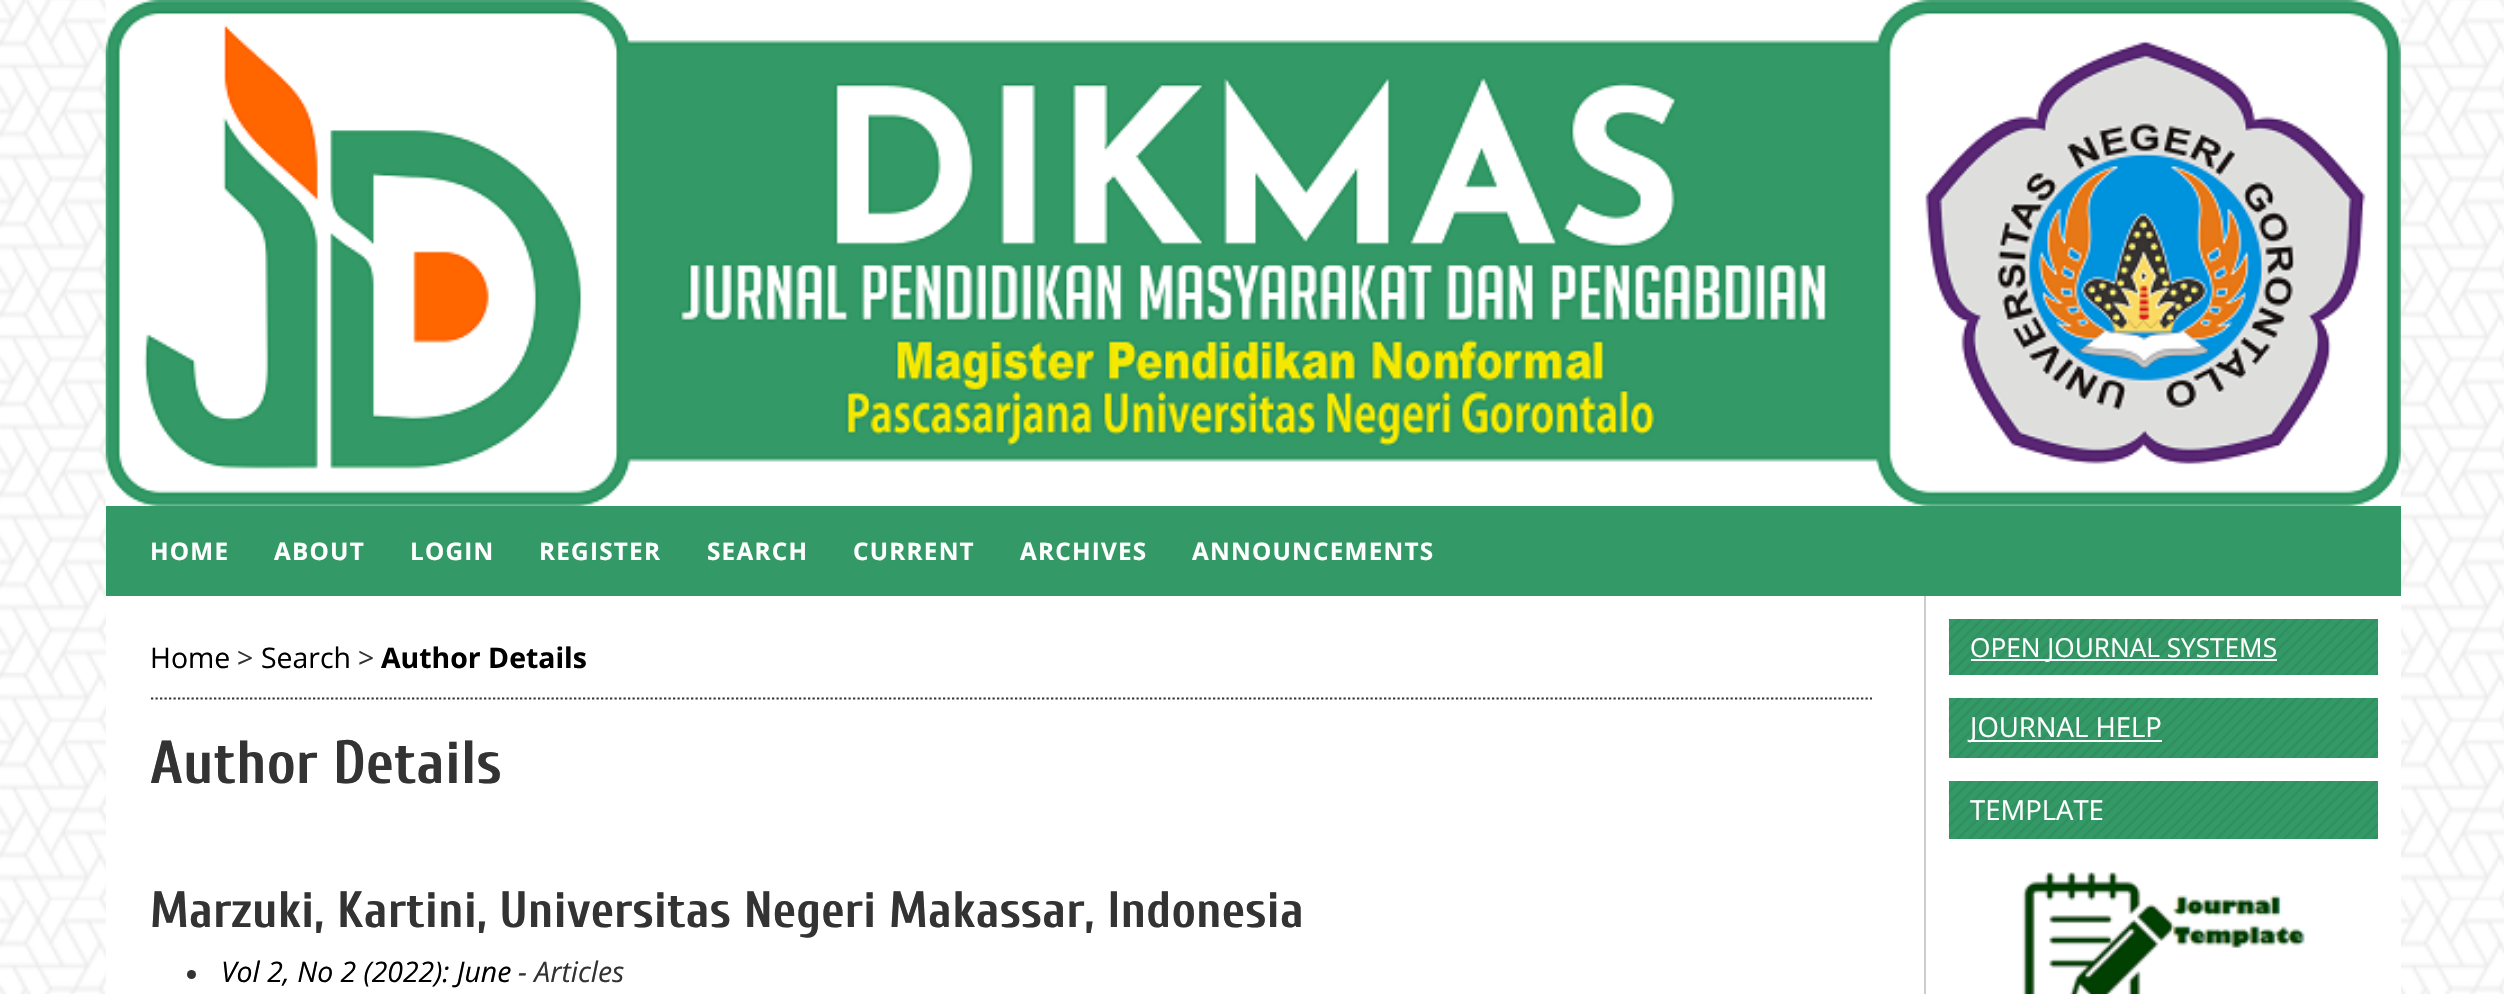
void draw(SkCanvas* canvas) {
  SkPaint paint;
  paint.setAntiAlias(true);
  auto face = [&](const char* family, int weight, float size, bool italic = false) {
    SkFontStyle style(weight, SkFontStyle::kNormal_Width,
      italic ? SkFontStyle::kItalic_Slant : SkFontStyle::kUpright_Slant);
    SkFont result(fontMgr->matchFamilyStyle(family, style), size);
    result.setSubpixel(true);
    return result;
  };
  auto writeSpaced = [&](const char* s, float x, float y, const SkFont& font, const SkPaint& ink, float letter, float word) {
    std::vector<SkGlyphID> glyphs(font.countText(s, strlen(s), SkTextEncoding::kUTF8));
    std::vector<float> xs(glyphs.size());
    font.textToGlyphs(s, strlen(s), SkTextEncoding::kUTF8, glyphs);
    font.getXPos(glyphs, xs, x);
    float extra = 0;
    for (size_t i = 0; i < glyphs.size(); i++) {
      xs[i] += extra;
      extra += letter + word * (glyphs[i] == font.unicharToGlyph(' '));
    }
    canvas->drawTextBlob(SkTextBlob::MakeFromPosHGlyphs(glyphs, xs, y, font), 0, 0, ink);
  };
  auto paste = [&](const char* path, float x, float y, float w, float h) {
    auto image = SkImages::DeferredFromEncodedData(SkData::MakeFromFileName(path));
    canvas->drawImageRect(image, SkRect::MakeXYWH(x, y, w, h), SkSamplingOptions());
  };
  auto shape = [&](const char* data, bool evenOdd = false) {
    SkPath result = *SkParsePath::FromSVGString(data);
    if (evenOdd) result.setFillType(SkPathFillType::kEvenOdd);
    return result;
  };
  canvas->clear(0xffffffff);
  paste("img/1.png", 0, 0, 2504, 994);
  paste("img/2.png", 105, 0, 2296, 507);
  paint.setColor(0xffffffff);
  canvas->drawRect(SkRect::MakeXYWH(106, 596, 2295, 398), paint);
  paint.setColor(0xff339966);
  canvas->drawRect(SkRect::MakeXYWH(106, 506, 2295, 90), paint);
  paint.setStroke(true);
  paint.setStrokeWidth(2.2f);
  paint.setColor(0xff333333);
  paint.setPathEffect(SkDashPathEffect::Make({{2.25f, 2.25f}}, 0));
  canvas->drawPath(shape("M151 698.5H1872"), paint);
  paint.setPathEffect(nullptr);
  paint.setStroke(false);
  canvas->drawCircle(191.5f, 974.5f, 4.5f, paint);
  paint.setColor(0xffcccccc);
  canvas->drawRect(SkRect::MakeXYWH(1924, 596, 2, 398), paint);
  paint.setColor(0xff339966);
  canvas->drawRect(SkRect::MakeXYWH(1949, 619, 429, 56), paint);
  paste("img/3.png", 1948, 619, 430, 56);
  paint.setColor(0xffffffff);
  canvas->drawRect(SkRect::MakeXYWH(1971, 659, 306, 2), paint);
  paint.setColor(0xff339966);
  canvas->drawRect(SkRect::MakeXYWH(1949, 698, 429, 60), paint);
  paste("img/4.png", 1948, 697, 430, 61);
  paint.setColor(0xffffffff);
  canvas->drawRect(SkRect::MakeXYWH(1971, 740, 191, 2), paint);
  paint.setColor(0xff339966);
  canvas->drawRect(SkRect::MakeXYWH(1949, 781, 429, 58), paint);
  paste("img/5.png", 1948, 781, 430, 58);
  paste("img/6.png", 2022, 871, 283, 123);
  auto f0 = face("Open Sans", 700, 24.25f);
  paint.setColor(0xffffffff);
  {
    const struct { const char* s; float x, y; } items[] = {
      {"HOME", 150, 560},
      {"ABOUT", 274, 560},
      {"LOGIN", 410, 560},
      {"REGISTER", 539, 560},
      {"SEARCH", 707, 560},
      {"CURRENT", 853, 560},
      {"ARCHIVES", 1020, 560},
      {"ANNOUNCEMENTS", 1192, 560},
    };
    for (auto [s, x, y] : items) {
      writeSpaced(s, x, y, f0, paint, 1.25f, 0);
    }
  }
  auto f1 = face("Open Sans", 400, 28.4f);
  paint.setColor(0xff000000);
  canvas->drawString("Home", 150, 668, f1, paint);
  paint.setColor(0xff333333);
  canvas->drawString(">", 237, 668, f1, paint);
  paint.setColor(0xff000000);
  canvas->drawString("Search", 261, 668, f1, paint);
  paint.setColor(0xff333333);
  canvas->drawString(">", 358, 668, f1, paint);
  auto f2 = face("Open Sans", 700, 28.4f);
  paint.setColor(0xff000000);
  canvas->drawString("Author Details", 381, 668, f2, paint);
  auto f3 = face("Cuprum", 700, 60.75f);
  paint.setColor(0xff333333);
  canvas->drawString("Author Details", 150, 783, f3, paint);
  auto f4 = face("Cuprum", 700, 51);
  canvas->drawString("Marzuki, Kartini, Universitas Negeri Makassar, Indonesia", 150, 927, f4, paint);
  auto f5 = face("Open Sans", 400, 28.4f, true);
  paint.setColor(0xff000000);
  canvas->drawString("Vol 2, No 2 (2022): June", 221, 982, f5, paint);
  paint.setColor(0xff333333);
  canvas->drawString("- Articles", 518, 982, f5, paint);
  auto f6 = face("Open Sans", 400, 26.2f);
  paint.setColor(0xffffffff);
  canvas->drawString("OPEN JOURNAL SYSTEMS", 1970, 657, f6, paint);
  auto f7 = face("Open Sans", 400, 27.5f);
  canvas->drawString("JOURNAL HELP", 1970, 737, f7, paint);
  canvas->drawString("TEMPLATE", 1970, 820, f7, paint);
}
